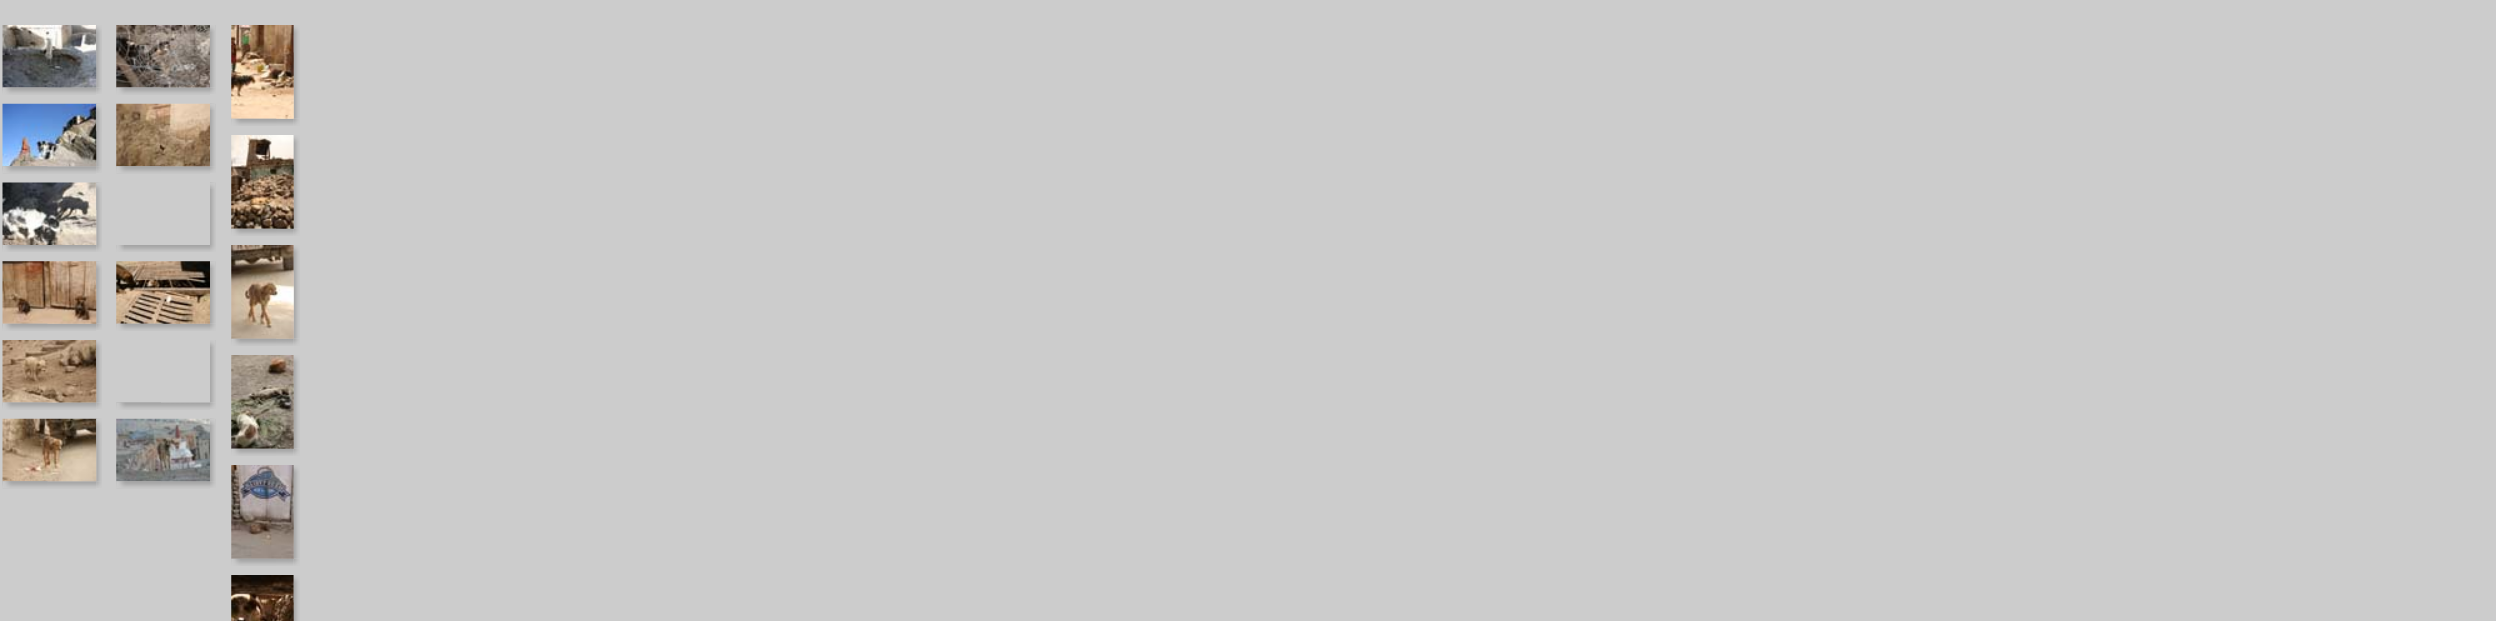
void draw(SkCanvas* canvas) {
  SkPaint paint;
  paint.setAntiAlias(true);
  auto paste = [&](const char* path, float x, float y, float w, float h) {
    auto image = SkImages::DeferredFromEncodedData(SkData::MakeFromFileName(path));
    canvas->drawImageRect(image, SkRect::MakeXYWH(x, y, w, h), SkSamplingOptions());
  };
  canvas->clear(0xffcccccc);
  paste("img/2.png", 96, 25, 6, 63);
  paste("img/4.png", 2, 87, 95, 8);
  paste("img/1.png", 2, 25, 95, 63);
  paste("img/3.png", 96, 25, 6, 26);
  paste("img/5.png", 2, 87, 46, 8);
  paste("img/6.png", 96, 87, 6, 7);
  paste("img/8.png", 96, 103, 6, 64);
  paste("img/10.png", 2, 166, 95, 8);
  paste("img/7.png", 2, 103, 95, 64);
  paste("img/9.png", 96, 104, 6, 28);
  paste("img/11.png", 2, 166, 46, 7);
  paste("img/12.png", 96, 166, 6, 7);
  paste("img/14.png", 96, 182, 6, 63);
  paste("img/13.png", 2, 182, 95, 63);
  paste("img/15.png", 96, 182, 6, 28);
  paste("img/16.png", 2, 245, 95, 7);
  paste("img/17.png", 2, 245, 9, 7);
  paste("img/18.png", 96, 245, 6, 7);
  paste("img/20.png", 96, 261, 6, 63);
  paste("img/22.png", 2, 323, 95, 8);
  paste("img/19.png", 2, 261, 95, 63);
  paste("img/21.png", 96, 261, 6, 28);
  paste("img/23.png", 2, 323, 46, 8);
  paste("img/24.png", 96, 324, 6, 6);
  paste("img/2.png", 96, 340, 6, 63);
  paste("img/27.png", 2, 402, 95, 8);
  paste("img/25.png", 2, 340, 95, 63);
  paste("img/26.png", 96, 340, 6, 28);
  paste("img/28.png", 2, 402, 46, 8);
  paste("img/29.png", 96, 402, 6, 7);
  paste("img/8.png", 96, 418, 6, 64);
  paste("img/10.png", 2, 481, 95, 8);
  paste("img/30.png", 2, 418, 95, 64);
  paste("img/31.png", 96, 419, 6, 27);
  paste("img/32.png", 2, 481, 46, 7);
  paste("img/33.png", 96, 481, 6, 7);
  paste("img/37.png", 116, 87, 94, 8);
  paste("img/34.png", 116, 25, 94, 63);
  paste("img/35.png", 210, 25, 6, 63);
  paste("img/36.png", 210, 25, 5, 7);
  paste("img/38.png", 116, 87, 45, 8);
  paste("img/39.png", 210, 87, 6, 7);
  paste("img/43.png", 116, 166, 94, 8);
  paste("img/40.png", 116, 103, 94, 64);
  paste("img/41.png", 210, 103, 6, 64);
  paste("img/42.png", 210, 104, 5, 6);
  paste("img/44.png", 116, 166, 45, 7);
  paste("img/45.png", 210, 166, 6, 7);
  paste("img/46.png", 210, 182, 6, 63);
  paste("img/47.png", 210, 182, 5, 7);
  paste("img/48.png", 116, 245, 94, 7);
  paste("img/49.png", 116, 245, 8, 7);
  paste("img/50.png", 210, 245, 6, 7);
  paste("img/54.png", 116, 323, 94, 8);
  paste("img/51.png", 116, 261, 94, 63);
  paste("img/52.png", 210, 261, 6, 63);
  paste("img/53.png", 210, 261, 5, 7);
  paste("img/55.png", 116, 323, 44, 8);
  paste("img/56.png", 210, 324, 6, 7);
  paste("img/35.png", 210, 340, 6, 63);
  paste("img/36.png", 210, 340, 5, 7);
  paste("img/57.png", 116, 402, 94, 8);
  paste("img/58.png", 116, 402, 45, 8);
  paste("img/39.png", 210, 402, 6, 7);
  paste("img/43.png", 116, 481, 94, 8);
  paste("img/59.png", 116, 418, 94, 64);
  paste("img/41.png", 210, 418, 6, 64);
  paste("img/42.png", 210, 419, 5, 6);
  paste("img/60.png", 116, 481, 45, 7);
  paste("img/45.png", 210, 481, 6, 7);
  paste("img/62.png", 293, 25, 7, 94);
  paste("img/64.png", 231, 118, 63, 8);
  paste("img/61.png", 231, 25, 63, 94);
  paste("img/63.png", 293, 25, 7, 28);
  paste("img/65.png", 231, 118, 46, 8);
  paste("img/66.png", 294, 119, 6, 7);
  paste("img/62.png", 293, 135, 7, 94);
  paste("img/64.png", 231, 228, 63, 8);
  paste("img/67.png", 231, 135, 63, 94);
  paste("img/68.png", 293, 135, 7, 28);
  paste("img/69.png", 231, 228, 46, 8);
  paste("img/70.png", 293, 228, 7, 8);
  paste("img/62.png", 293, 245, 7, 94);
  paste("img/73.png", 231, 338, 63, 8);
  paste("img/71.png", 231, 245, 63, 94);
  paste("img/72.png", 293, 245, 7, 28);
  paste("img/74.png", 231, 338, 45, 8);
  paste("img/66.png", 294, 339, 6, 7);
  paste("img/62.png", 293, 355, 7, 94);
  paste("img/64.png", 231, 448, 63, 8);
  paste("img/75.png", 231, 355, 63, 94);
  paste("img/76.png", 293, 355, 7, 27);
  paste("img/77.png", 231, 448, 45, 8);
  paste("img/66.png", 294, 449, 6, 7);
  paste("img/62.png", 293, 465, 7, 94);
  paste("img/80.png", 231, 558, 63, 8);
  paste("img/78.png", 231, 465, 63, 94);
  paste("img/79.png", 293, 465, 7, 28);
  paste("img/81.png", 231, 558, 45, 8);
  paste("img/66.png", 294, 559, 6, 7);
  paste("img/83.png", 293, 575, 7, 46);
  paste("img/82.png", 231, 575, 63, 46);
  paste("img/84.png", 293, 575, 7, 28);
}
